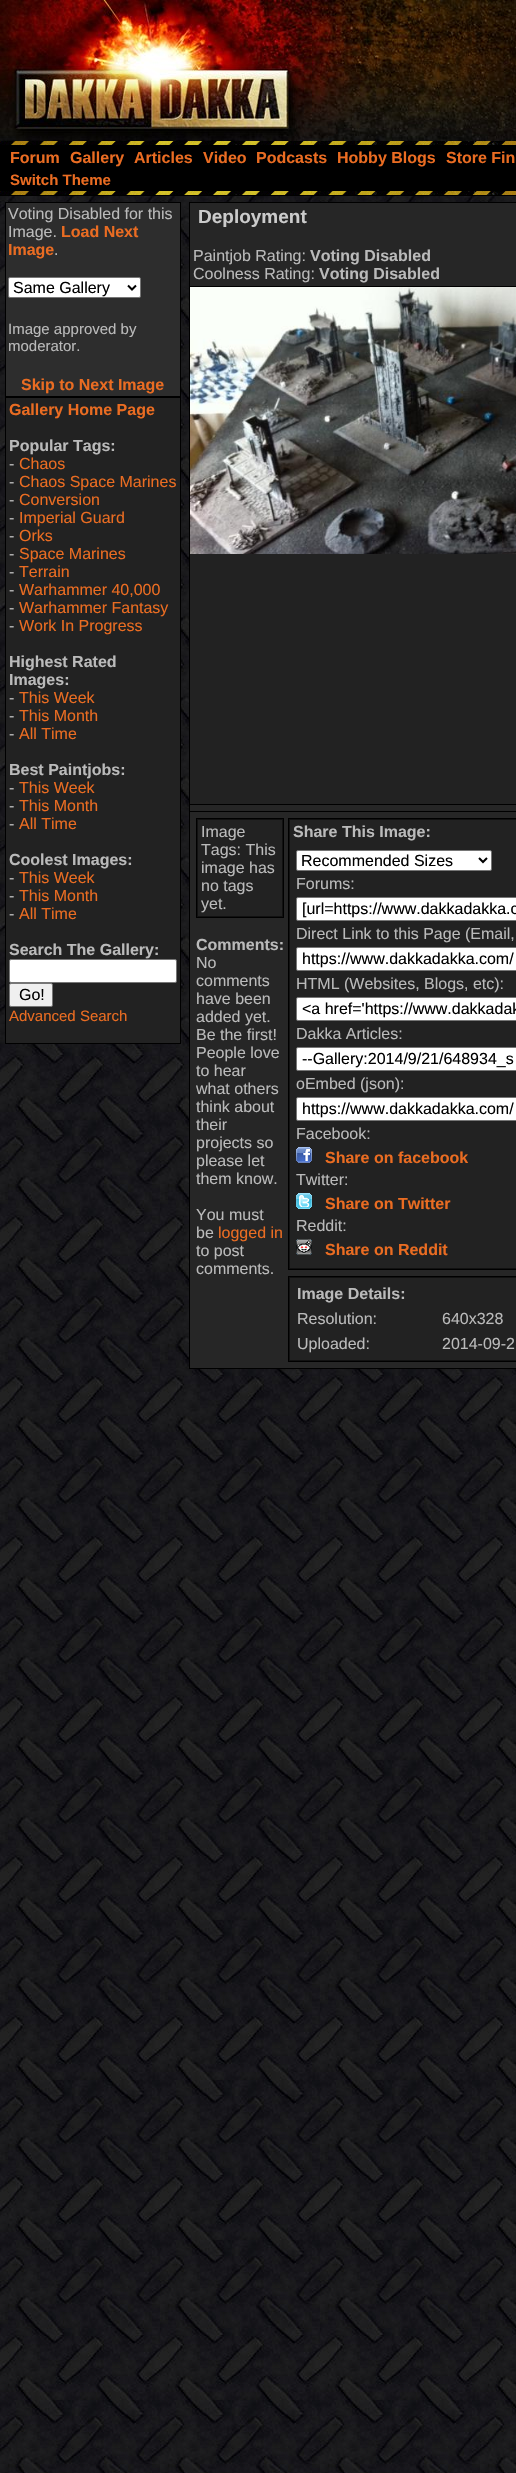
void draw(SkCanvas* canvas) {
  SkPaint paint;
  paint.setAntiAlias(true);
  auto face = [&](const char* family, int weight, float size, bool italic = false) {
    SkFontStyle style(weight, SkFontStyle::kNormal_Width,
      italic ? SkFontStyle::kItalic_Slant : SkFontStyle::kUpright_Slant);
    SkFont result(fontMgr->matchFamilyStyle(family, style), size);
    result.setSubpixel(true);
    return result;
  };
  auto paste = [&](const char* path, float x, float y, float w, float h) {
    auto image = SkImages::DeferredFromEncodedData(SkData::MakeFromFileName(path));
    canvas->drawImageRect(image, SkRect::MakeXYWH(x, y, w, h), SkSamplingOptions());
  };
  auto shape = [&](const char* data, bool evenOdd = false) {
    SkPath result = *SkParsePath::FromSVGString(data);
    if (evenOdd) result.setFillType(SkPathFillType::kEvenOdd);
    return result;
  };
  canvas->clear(0xffffffff);
  paste("img/1.png", 0, 196, 516, 2277);
  paste("img/2.png", 312, 0, 204, 141);
  paste("img/3.png", 0, 0, 312, 141);
  paint.setColor(0xff000000);
  canvas->drawRect(SkRect::MakeXYWH(0, 145, 516, 46), paint);
  paste("img/4.png", 0, 141, 516, 4);
  canvas->drawRect(SkRect::MakeXYWH(0, 195, 516, 1), paint);
  paste("img/4.png", 0, 191, 516, 4);
  paint.setStroke(true);
  paint.setStrokeWidth(1);
  canvas->drawRect(SkRect::MakeXYWH(5.5f, 202.5f, 175, 194), paint);
  paint.setStroke(false);
  paint.setColor(0xff2d2d2d);
  canvas->drawRect(SkRect::MakeXYWH(6, 203, 174, 193), paint);
  paint.setColor(0xffffffff);
  canvas->drawRoundRect(SkRect::MakeXYWH(8.5f, 277.5f, 132, 20), 1.5f, 1.5f, paint);
  paint.setStroke(true);
  paint.setColor(0xff767676);
  canvas->drawRoundRect(SkRect::MakeXYWH(8.5f, 277.5f, 132, 20), 1.5f, 1.5f, paint);
  paint.setStrokeWidth(2);
  paint.setColor(0xff000000);
  canvas->drawPath(shape("M128 285.5L132 289.5L136 285.5"), paint);
  paint.setStrokeWidth(1);
  canvas->drawRect(SkRect::MakeXYWH(5.5f, 397.5f, 175, 646), paint);
  paint.setStroke(false);
  paint.setColor(0xff222222);
  canvas->drawRect(SkRect::MakeXYWH(6, 398, 174, 645), paint);
  paint.setColor(0xffffffff);
  canvas->drawRoundRect(SkRect::MakeXYWH(9.5f, 959.5f, 167, 23), 1.5f, 1.5f, paint);
  paint.setStroke(true);
  paint.setColor(0xff767676);
  canvas->drawRoundRect(SkRect::MakeXYWH(9.5f, 959.5f, 167, 23), 1.5f, 1.5f, paint);
  paint.setStroke(false);
  paint.setColor(0xffefefef);
  canvas->drawRoundRect(SkRect::MakeXYWH(9.5f, 983.5f, 43, 23), 1.5f, 1.5f, paint);
  paint.setStroke(true);
  paint.setColor(0xff767676);
  canvas->drawRoundRect(SkRect::MakeXYWH(9.5f, 983.5f, 43, 23), 1.5f, 1.5f, paint);
  paint.setColor(0xff000000);
  canvas->drawRect(SkRect::MakeXYWH(189.5f, 202.5f, 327, 84), paint);
  paint.setStroke(false);
  {
    const struct { float x, y, w, h; SkColor color; } items[] = {
      {190, 203, 326, 83, 0xff262626},
      {189, 804, 327, 1, 0xff000000},
      {189, 287, 1, 518, 0xff000000},
      {190, 554, 326, 250, 0xff222222},
    };
    for (auto [x, y, w, h, color] : items) {
      paint.setColor(color);
      canvas->drawRect(SkRect::MakeXYWH(x, y, w, h), paint);
    }
  }
  paste("img/5.png", 190, 287, 326, 267);
  {
    const struct { float x, y, w, h; SkColor color; } items[] = {
      {189, 811, 327, 1, 0xff000000},
      {189, 805, 1, 7, 0xff000000},
      {190, 805, 326, 6, 0xff262626},
      {189, 1368, 327, 1, 0xff000000},
      {189, 812, 1, 557, 0xff000000},
      {190, 812, 326, 556, 0xff262626},
    };
    for (auto [x, y, w, h, color] : items) {
      paint.setColor(color);
      canvas->drawRect(SkRect::MakeXYWH(x, y, w, h), paint);
    }
  }
  paint.setColor(0xff111111);
  canvas->drawRect(SkRect::MakeXYWH(196.5f, 818.5f, 87, 99), paint);
  paint.setStroke(true);
  paint.setColor(0xff000000);
  canvas->drawRect(SkRect::MakeXYWH(196.5f, 818.5f, 87, 99), paint);
  paint.setStroke(false);
  paint.setColor(0xff222222);
  canvas->drawRect(SkRect::MakeXYWH(198, 820, 84, 96), paint);
  paint.setColor(0xff111111);
  canvas->drawRect(SkRect::MakeXYWH(288.5f, 818.5f, 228, 451), paint);
  paint.setStroke(true);
  paint.setColor(0xff000000);
  canvas->drawRect(SkRect::MakeXYWH(288.5f, 818.5f, 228, 451), paint);
  paint.setStroke(false);
  paint.setColor(0xff222222);
  canvas->drawRect(SkRect::MakeXYWH(290, 820, 226, 448), paint);
  paint.setColor(0xffffffff);
  canvas->drawRoundRect(SkRect::MakeXYWH(296.5f, 850.5f, 195, 20), 1.5f, 1.5f, paint);
  paint.setStroke(true);
  paint.setColor(0xff767676);
  canvas->drawRoundRect(SkRect::MakeXYWH(296.5f, 850.5f, 195, 20), 1.5f, 1.5f, paint);
  paint.setStrokeWidth(2);
  paint.setColor(0xff000000);
  canvas->drawPath(shape("M479 858L483 862L487 858"), paint);
  paint.setStroke(false);
  paint.setColor(0xffffffff);
  canvas->drawRoundRect(SkRect::MakeXYWH(296.5f, 897.5f, 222, 23), 1.5f, 1.5f, paint);
  paint.setStroke(true);
  paint.setStrokeWidth(1);
  paint.setColor(0xff767676);
  canvas->drawRoundRect(SkRect::MakeXYWH(296.5f, 897.5f, 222, 23), 1.5f, 1.5f, paint);
  paint.setStroke(false);
  paint.setColor(0xffffffff);
  canvas->drawRoundRect(SkRect::MakeXYWH(296.5f, 947.5f, 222, 23), 1.5f, 1.5f, paint);
  paint.setStroke(true);
  paint.setColor(0xff767676);
  canvas->drawRoundRect(SkRect::MakeXYWH(296.5f, 947.5f, 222, 23), 1.5f, 1.5f, paint);
  paint.setStroke(false);
  paint.setColor(0xffffffff);
  canvas->drawRoundRect(SkRect::MakeXYWH(296.5f, 997.5f, 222, 23), 1.5f, 1.5f, paint);
  paint.setStroke(true);
  paint.setColor(0xff767676);
  canvas->drawRoundRect(SkRect::MakeXYWH(296.5f, 997.5f, 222, 23), 1.5f, 1.5f, paint);
  paint.setStroke(false);
  paint.setColor(0xffffffff);
  canvas->drawRoundRect(SkRect::MakeXYWH(296.5f, 1047.5f, 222, 23), 1.5f, 1.5f, paint);
  paint.setStroke(true);
  paint.setColor(0xff767676);
  canvas->drawRoundRect(SkRect::MakeXYWH(296.5f, 1047.5f, 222, 23), 1.5f, 1.5f, paint);
  paint.setStroke(false);
  paint.setColor(0xffffffff);
  canvas->drawRoundRect(SkRect::MakeXYWH(296.5f, 1097.5f, 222, 23), 1.5f, 1.5f, paint);
  paint.setStroke(true);
  paint.setColor(0xff767676);
  canvas->drawRoundRect(SkRect::MakeXYWH(296.5f, 1097.5f, 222, 23), 1.5f, 1.5f, paint);
  paste("img/6.png", 296, 1147, 16, 16);
  paste("img/7.png", 296, 1193, 16, 16);
  paste("img/8.png", 296, 1239, 16, 16);
  paint.setStroke(false);
  paint.setColor(0xff111111);
  canvas->drawRect(SkRect::MakeXYWH(288.5f, 1276.5f, 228, 85), paint);
  paint.setStroke(true);
  paint.setColor(0xff000000);
  canvas->drawRect(SkRect::MakeXYWH(288.5f, 1276.5f, 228, 85), paint);
  paint.setStroke(false);
  paint.setColor(0xff222222);
  canvas->drawRect(SkRect::MakeXYWH(290, 1278, 226, 82), paint);
  auto f0 = face("Liberation Sans", 700, 16);
  paint.setColor(0xffea6c22);
  {
    const struct { const char* s; float x, y; } items[] = {
      {"Forum", 10, 163},
      {"Gallery", 70, 163},
      {"Articles", 134, 163},
      {"Video", 203, 163},
      {"Podcasts", 256, 163},
      {"Hobby Blogs", 337, 163},
      {"Store Fin", 446, 163},
    };
    for (auto [s, x, y] : items) {
      canvas->drawString(s, x, y, f0, paint);
    }
  }
  auto f1 = face("Liberation Sans", 700, 15);
  canvas->drawString("Switch Theme", 10, 185, f1, paint);
  auto f2 = face("Liberation Sans", 400, 16);
  paint.setColor(0xffbababa);
  canvas->drawString("Voting Disabled for this", 8, 219, f2, paint);
  canvas->drawString("Image.", 8, 237, f2, paint);
  paint.setColor(0xffea6c22);
  canvas->drawString("Load Next", 61, 237, f0, paint);
  canvas->drawString("Image", 8, 255, f0, paint);
  paint.setColor(0xffbababa);
  canvas->drawString(".", 54, 255, f2, paint);
  paint.setColor(0xff000000);
  canvas->drawString("Same Gallery", 13, 293, f2, paint);
  auto f3 = face("Liberation Sans", 400, 15);
  paint.setColor(0xffbababa);
  canvas->drawString("Image approved by", 8, 334, f3, paint);
  canvas->drawString("moderator.", 8, 351, f3, paint);
  paint.setColor(0xffea6c22);
  canvas->drawString("Skip to Next Image", 21, 390, f0, paint);
  canvas->drawString("Gallery Home Page", 9, 415, f0, paint);
  paint.setColor(0xffbababa);
  canvas->drawString("Popular Tags:", 9, 451, f0, paint);
  canvas->drawString("-", 9, 469, f2, paint);
  paint.setColor(0xffea6c22);
  canvas->drawString("Chaos", 19, 469, f2, paint);
  paint.setColor(0xffbababa);
  canvas->drawString("-", 9, 487, f2, paint);
  paint.setColor(0xffea6c22);
  canvas->drawString("Chaos Space Marines", 19, 487, f2, paint);
  paint.setColor(0xffbababa);
  canvas->drawString("-", 9, 505, f2, paint);
  paint.setColor(0xffea6c22);
  canvas->drawString("Conversion", 19, 505, f2, paint);
  paint.setColor(0xffbababa);
  canvas->drawString("-", 9, 523, f2, paint);
  paint.setColor(0xffea6c22);
  canvas->drawString("Imperial Guard", 19, 523, f2, paint);
  paint.setColor(0xffbababa);
  canvas->drawString("-", 9, 541, f2, paint);
  paint.setColor(0xffea6c22);
  canvas->drawString("Orks", 19, 541, f2, paint);
  paint.setColor(0xffbababa);
  canvas->drawString("-", 9, 559, f2, paint);
  paint.setColor(0xffea6c22);
  canvas->drawString("Space Marines", 19, 559, f2, paint);
  paint.setColor(0xffbababa);
  canvas->drawString("-", 9, 577, f2, paint);
  paint.setColor(0xffea6c22);
  canvas->drawString("Terrain", 19, 577, f2, paint);
  paint.setColor(0xffbababa);
  canvas->drawString("-", 9, 595, f2, paint);
  paint.setColor(0xffea6c22);
  canvas->drawString("Warhammer 40,000", 19, 595, f2, paint);
  paint.setColor(0xffbababa);
  canvas->drawString("-", 9, 613, f2, paint);
  paint.setColor(0xffea6c22);
  canvas->drawString("Warhammer Fantasy", 19, 613, f2, paint);
  paint.setColor(0xffbababa);
  canvas->drawString("-", 9, 631, f2, paint);
  paint.setColor(0xffea6c22);
  canvas->drawString("Work In Progress", 19, 631, f2, paint);
  paint.setColor(0xffbababa);
  canvas->drawString("Highest Rated", 9, 667, f0, paint);
  canvas->drawString("Images:", 9, 685, f0, paint);
  canvas->drawString("-", 9, 703, f2, paint);
  paint.setColor(0xffea6c22);
  canvas->drawString("This Week", 19, 703, f2, paint);
  paint.setColor(0xffbababa);
  canvas->drawString("-", 9, 721, f2, paint);
  paint.setColor(0xffea6c22);
  canvas->drawString("This Month", 19, 721, f2, paint);
  paint.setColor(0xffbababa);
  canvas->drawString("-", 9, 739, f2, paint);
  paint.setColor(0xffea6c22);
  canvas->drawString("All Time", 19, 739, f2, paint);
  paint.setColor(0xffbababa);
  canvas->drawString("Best Paintjobs:", 9, 775, f0, paint);
  canvas->drawString("-", 9, 793, f2, paint);
  paint.setColor(0xffea6c22);
  canvas->drawString("This Week", 19, 793, f2, paint);
  paint.setColor(0xffbababa);
  canvas->drawString("-", 9, 811, f2, paint);
  paint.setColor(0xffea6c22);
  canvas->drawString("This Month", 19, 811, f2, paint);
  paint.setColor(0xffbababa);
  canvas->drawString("-", 9, 829, f2, paint);
  paint.setColor(0xffea6c22);
  canvas->drawString("All Time", 19, 829, f2, paint);
  paint.setColor(0xffbababa);
  canvas->drawString("Coolest Images:", 9, 865, f0, paint);
  canvas->drawString("-", 9, 883, f2, paint);
  paint.setColor(0xffea6c22);
  canvas->drawString("This Week", 19, 883, f2, paint);
  paint.setColor(0xffbababa);
  canvas->drawString("-", 9, 901, f2, paint);
  paint.setColor(0xffea6c22);
  canvas->drawString("This Month", 19, 901, f2, paint);
  paint.setColor(0xffbababa);
  canvas->drawString("-", 9, 919, f2, paint);
  paint.setColor(0xffea6c22);
  canvas->drawString("All Time", 19, 919, f2, paint);
  paint.setColor(0xffbababa);
  canvas->drawString("Search The Gallery:", 9, 955, f0, paint);
  paint.setColor(0xff000000);
  canvas->drawString("Go!", 19, 1000, f2, paint);
  paint.setColor(0xffea6c22);
  canvas->drawString("Advanced Search", 9, 1021, f3, paint);
  auto f4 = face("Liberation Sans", 700, 19);
  paint.setColor(0xffcbcbcb);
  canvas->drawString("Deployment", 198, 223, f4, paint);
  paint.setColor(0xffbababa);
  canvas->drawString("Paintjob Rating:", 193, 261, f2, paint);
  canvas->drawString("Voting Disabled", 310, 261, f0, paint);
  canvas->drawString("Coolness Rating:", 193, 279, f2, paint);
  canvas->drawString("Voting Disabled", 319, 279, f0, paint);
  {
    const struct { const char* s; float x, y; } items[] = {
      {"Image", 201, 837},
      {"Tags: This", 201, 855},
      {"image has", 201, 873},
      {"no tags", 201, 891},
      {"yet.", 201, 909},
    };
    for (auto [s, x, y] : items) {
      canvas->drawString(s, x, y, f2, paint);
    }
  }
  canvas->drawString("Comments:", 196, 950, f0, paint);
  {
    const struct { const char* s; float x, y; } items[] = {
      {"No", 196, 968},
      {"comments", 196, 986},
      {"have been", 196, 1004},
      {"added yet.", 196, 1022},
      {"Be the first!", 196, 1040},
      {"People love", 196, 1058},
      {"to hear", 196, 1076},
      {"what others", 196, 1094},
      {"think about", 196, 1112},
      {"their", 196, 1130},
      {"projects so", 196, 1148},
      {"please let", 196, 1166},
      {"them know.", 196, 1184},
      {"You must", 196, 1220},
      {"be", 196, 1238},
    };
    for (auto [s, x, y] : items) {
      canvas->drawString(s, x, y, f2, paint);
    }
  }
  paint.setColor(0xffea6c22);
  canvas->drawString("logged in", 218, 1238, f2, paint);
  paint.setColor(0xffbababa);
  canvas->drawString("to post", 196, 1256, f2, paint);
  canvas->drawString("comments.", 196, 1274, f2, paint);
  canvas->drawString("Share This Image:", 293, 837, f0, paint);
  paint.setColor(0xff000000);
  canvas->drawString("Recommended Sizes", 301, 866, f2, paint);
  paint.setColor(0xffbababa);
  canvas->drawString("Forums:", 296, 889, f2, paint);
  paint.setColor(0xff000000);
  canvas->drawString("[url=https://www.dakkadakka.c", 302, 914, f2, paint);
  paint.setColor(0xffbababa);
  canvas->drawString("Direct Link to this Page (Email,", 296, 939, f2, paint);
  paint.setColor(0xff000000);
  canvas->drawString("https://www.dakkadakka.com/", 302, 964, f2, paint);
  paint.setColor(0xffbababa);
  canvas->drawString("HTML (Websites, Blogs, etc):", 296, 989, f2, paint);
  paint.setColor(0xff000000);
  canvas->drawString("<a href='https://www.dakkadak", 302, 1014, f2, paint);
  paint.setColor(0xffbababa);
  canvas->drawString("Dakka Articles:", 296, 1039, f2, paint);
  paint.setColor(0xff000000);
  canvas->drawString("--Gallery:2014/9/21/648934_s", 302, 1064, f2, paint);
  paint.setColor(0xffbababa);
  canvas->drawString("oEmbed (json):", 296, 1089, f2, paint);
  paint.setColor(0xff000000);
  canvas->drawString("https://www.dakkadakka.com/", 302, 1114, f2, paint);
  paint.setColor(0xffbababa);
  canvas->drawString("Facebook:", 296, 1139, f2, paint);
  paint.setColor(0xffea6c22);
  canvas->drawString("Share on facebook", 325, 1163, f0, paint);
  paint.setColor(0xffbababa);
  canvas->drawString("Twitter:", 296, 1185, f2, paint);
  paint.setColor(0xffea6c22);
  canvas->drawString("Share on Twitter", 325, 1209, f0, paint);
  paint.setColor(0xffbababa);
  canvas->drawString("Reddit:", 296, 1231, f2, paint);
  paint.setColor(0xffea6c22);
  canvas->drawString("Share on Reddit", 325, 1255, f0, paint);
  paint.setColor(0xffbababa);
  canvas->drawString("Image Details:", 297, 1299, f0, paint);
  {
    const struct { const char* s; float x, y; } items[] = {
      {"Resolution:", 297, 1324},
      {"640x328", 442, 1324},
      {"Uploaded:", 297, 1349},
      {"2014-09-2", 442, 1349},
    };
    for (auto [s, x, y] : items) {
      canvas->drawString(s, x, y, f2, paint);
    }
  }
}
